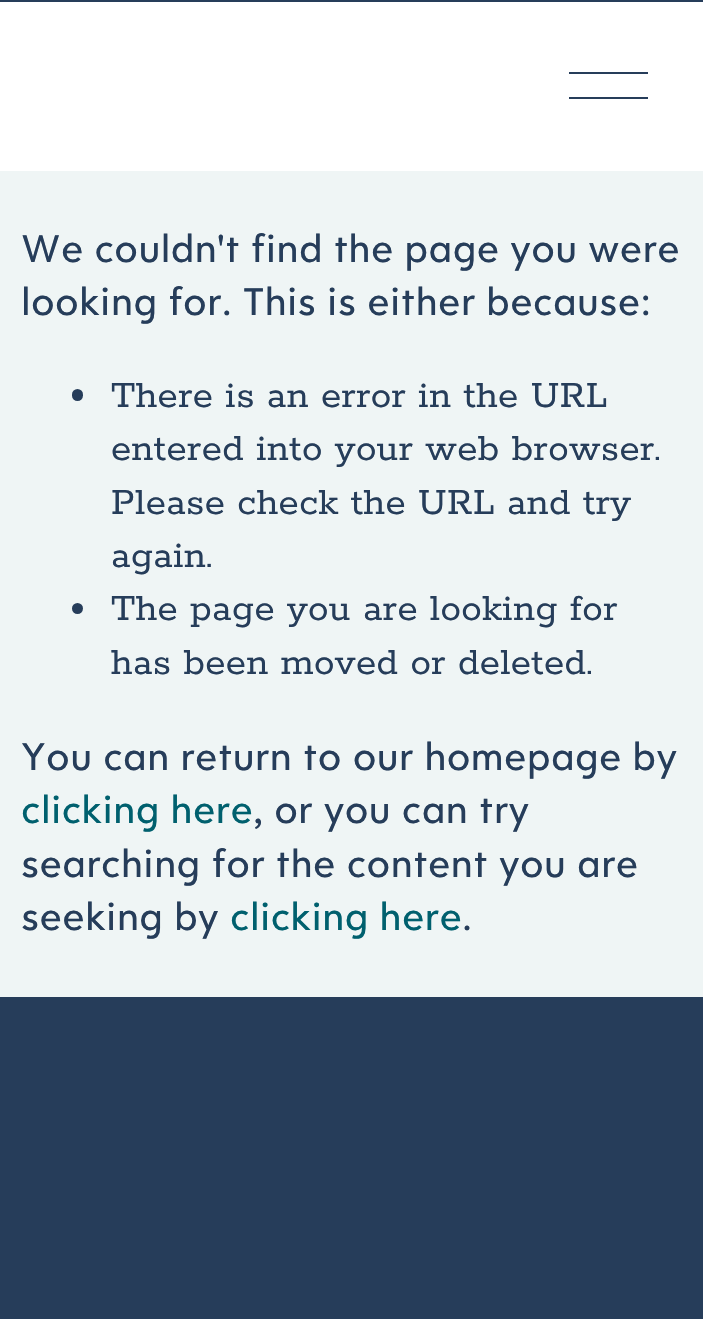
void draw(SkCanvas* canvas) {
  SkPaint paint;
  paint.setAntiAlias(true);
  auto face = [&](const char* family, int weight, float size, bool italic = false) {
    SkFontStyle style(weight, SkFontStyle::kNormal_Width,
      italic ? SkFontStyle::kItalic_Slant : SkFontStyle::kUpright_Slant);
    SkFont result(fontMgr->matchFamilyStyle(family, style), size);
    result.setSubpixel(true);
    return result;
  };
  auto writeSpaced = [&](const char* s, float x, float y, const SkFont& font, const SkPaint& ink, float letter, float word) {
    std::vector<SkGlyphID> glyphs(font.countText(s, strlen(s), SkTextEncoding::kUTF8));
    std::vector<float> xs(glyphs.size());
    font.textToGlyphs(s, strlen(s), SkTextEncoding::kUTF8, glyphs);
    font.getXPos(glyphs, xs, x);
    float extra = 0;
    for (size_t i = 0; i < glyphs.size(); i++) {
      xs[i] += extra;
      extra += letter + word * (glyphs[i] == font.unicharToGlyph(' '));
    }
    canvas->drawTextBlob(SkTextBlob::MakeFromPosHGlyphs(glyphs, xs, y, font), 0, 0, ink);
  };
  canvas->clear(0xffeff5f5);
  {
    const struct { float x, y, w, h; SkColor color; } items[] = {
      {0, 0, 703, 2, 0xff263d5a},
      {0, 2, 703, 169, 0xffffffff},
      {569, 72, 79, 2, 0xff263d5a},
      {569, 97, 79, 2, 0xff263d5a},
    };
    for (auto [x, y, w, h, color] : items) {
      paint.setColor(color);
      canvas->drawRect(SkRect::MakeXYWH(x, y, w, h), paint);
    }
  }
  canvas->drawRoundRect(SkRect::MakeXYWH(72, 389, 11, 12), 5.5f, 5.5f, paint);
  canvas->drawCircle(77.5f, 608.5f, 5.5f, paint);
  canvas->drawRect(SkRect::MakeXYWH(0, 997, 703, 322), paint);
  auto f0 = face("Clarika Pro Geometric", 500, 41);
  writeSpaced("We couldn't find the page you were", 21, 262, f0, paint, 0.4f, 0);
  writeSpaced("looking for. This is either because:", 21, 315, f0, paint, 0.4f, 0);
  auto f1 = face("Rokkitt", 400, 41);
  {
    const struct { const char* s; float x, y; } items[] = {
      {"There is an error in the URL", 111, 407},
      {"entered into your web browser.", 111, 460},
      {"Please check the URL and try", 111, 514},
      {"again.", 111, 567},
      {"The page you are looking for", 111, 620},
      {"has been moved or deleted.", 111, 674},
    };
    for (auto [s, x, y] : items) {
      writeSpaced(s, x, y, f1, paint, 0.4f, 0);
    }
  }
  writeSpaced("You can return to our homepage by", 21, 770, f0, paint, 0.4f, 0);
  paint.setColor(0xff00606e);
  writeSpaced("clicking here", 21, 823, f0, paint, 0.4f, 0);
  paint.setColor(0xff263d5a);
  {
    const struct { const char* s; float x, y; } items[] = {
      {", or you can try", 253, 823},
      {"searching for the content you are", 21, 877},
      {"seeking by", 21, 930},
    };
    for (auto [s, x, y] : items) {
      writeSpaced(s, x, y, f0, paint, 0.4f, 0);
    }
  }
  paint.setColor(0xff00606e);
  writeSpaced("clicking here", 230, 930, f0, paint, 0.4f, 0);
  paint.setColor(0xff263d5a);
  writeSpaced(".", 462, 930, f0, paint, 0.4f, 0);
}
